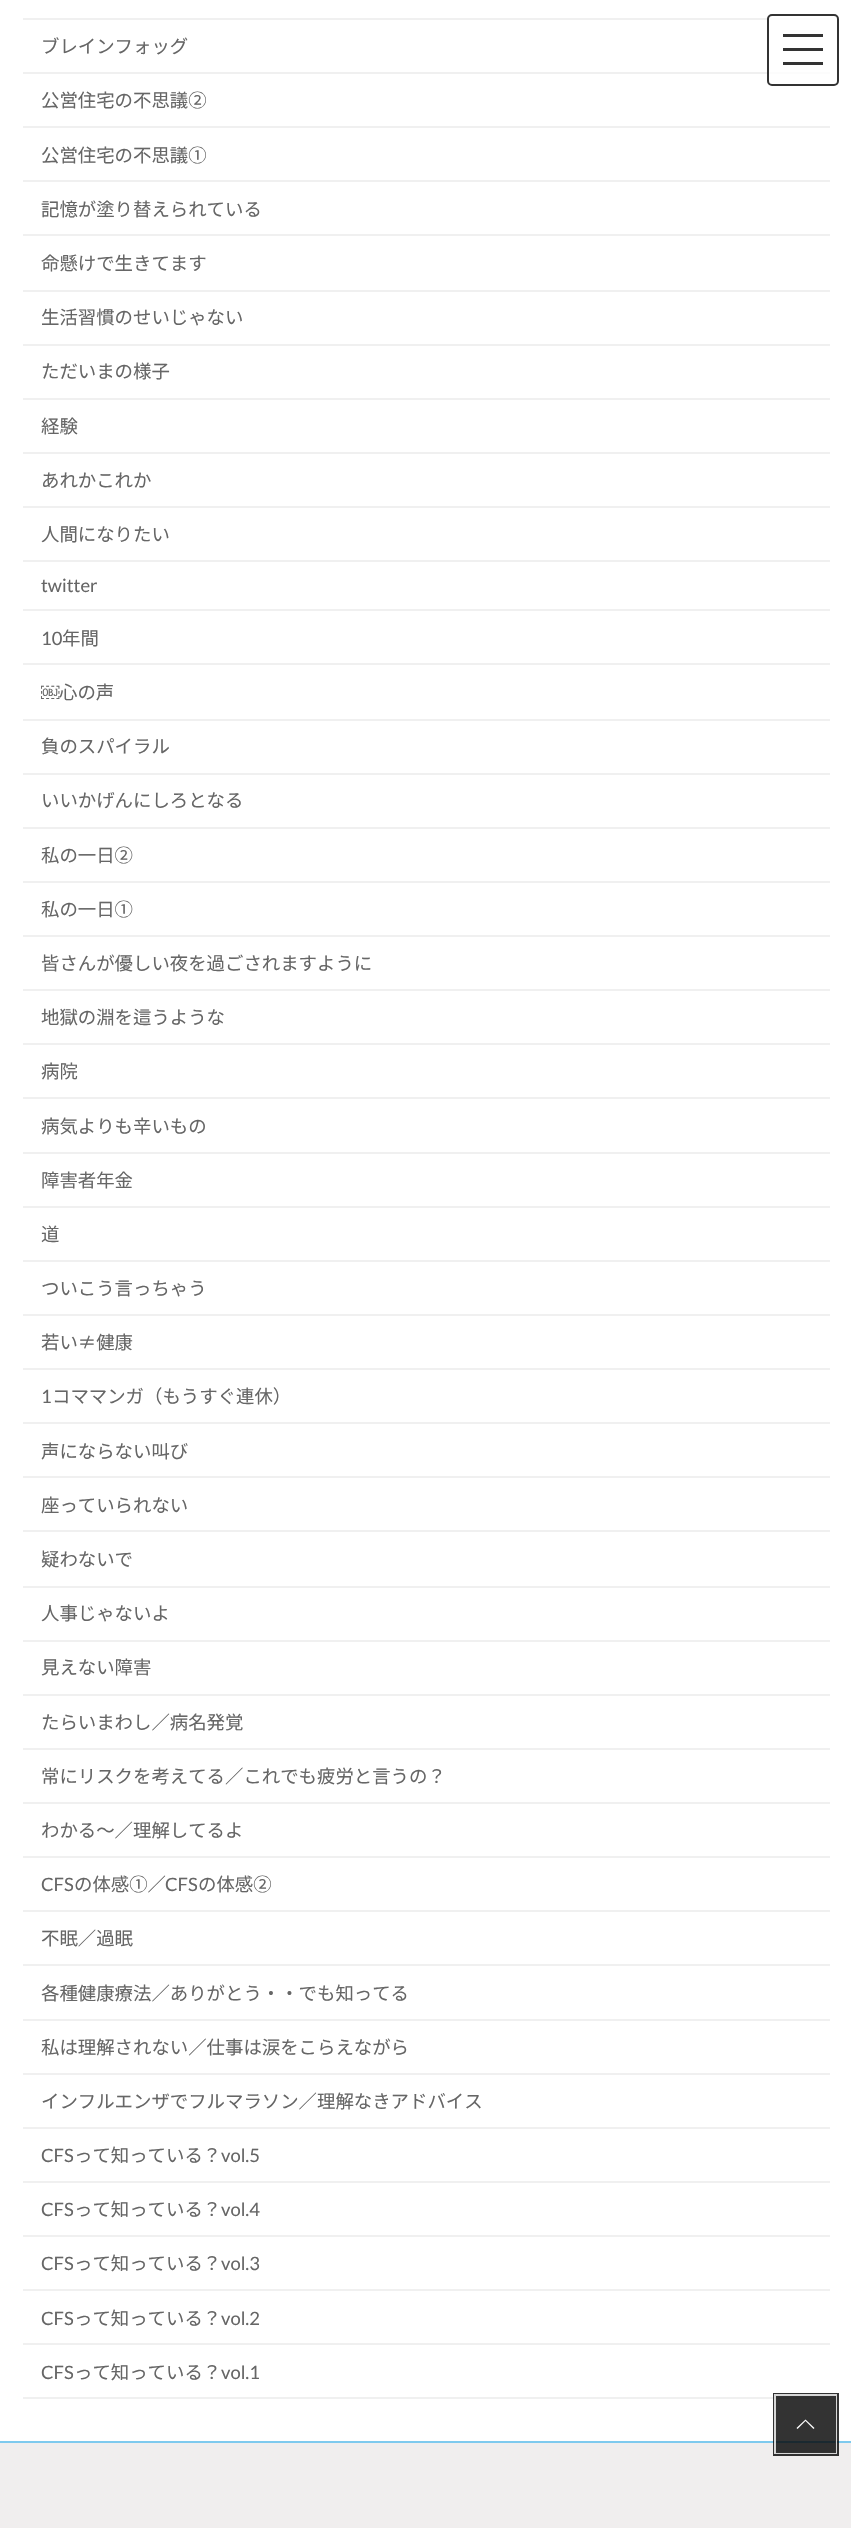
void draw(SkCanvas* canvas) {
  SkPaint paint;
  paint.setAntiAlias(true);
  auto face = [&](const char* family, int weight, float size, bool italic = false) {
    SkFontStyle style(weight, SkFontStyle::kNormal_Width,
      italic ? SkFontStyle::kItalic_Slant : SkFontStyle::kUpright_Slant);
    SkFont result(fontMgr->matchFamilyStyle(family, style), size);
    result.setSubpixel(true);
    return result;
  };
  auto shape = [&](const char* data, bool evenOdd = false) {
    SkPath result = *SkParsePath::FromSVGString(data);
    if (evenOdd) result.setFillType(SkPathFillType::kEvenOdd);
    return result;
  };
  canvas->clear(0xffffffff);
  {
    const struct { float x, y, w, h; SkColor color; } items[] = {
      {23, 18, 807, 2, 0xfff0f0f0},
      {23, 72, 807, 2, 0xfff0f0f0},
      {23, 126, 807, 2, 0xfff0f0f0},
      {23, 180, 807, 2, 0xfff0f0f0},
      {23, 234, 807, 2, 0xfff0f0f0},
      {23, 290, 807, 2, 0xfff0f0f0},
      {23, 344, 807, 2, 0xfff0f0f0},
      {23, 398, 807, 2, 0xfff0f0f0},
      {23, 452, 807, 2, 0xfff0f0f0},
      {23, 506, 807, 2, 0xfff0f0f0},
      {23, 560, 807, 2, 0xfff0f0f0},
      {23, 609, 807, 2, 0xfff0f0f0},
      {23, 663, 807, 2, 0xfff0f0f0},
      {23, 719, 807, 2, 0xfff0f0f0},
      {23, 773, 807, 2, 0xfff0f0f0},
      {23, 827, 807, 2, 0xfff0f0f0},
      {23, 881, 807, 2, 0xfff0f0f0},
      {23, 935, 807, 2, 0xfff0f0f0},
      {23, 989, 807, 2, 0xfff0f0f0},
      {23, 1043, 807, 2, 0xfff0f0f0},
      {23, 1097, 807, 2, 0xfff0f0f0},
      {23, 1152, 807, 2, 0xfff0f0f0},
      {23, 1206, 807, 2, 0xfff0f0f0},
      {23, 1260, 807, 2, 0xfff0f0f0},
      {23, 1314, 807, 2, 0xfff0f0f0},
      {23, 1368, 807, 2, 0xfff0f0f0},
      {23, 1422, 807, 2, 0xfff0f0f0},
      {23, 1476, 807, 2, 0xfff0f0f0},
      {23, 1530, 807, 2, 0xfff0f0f0},
      {23, 1586, 807, 2, 0xfff0f0f0},
      {23, 1640, 807, 2, 0xfff0f0f0},
      {23, 1694, 807, 2, 0xfff0f0f0},
      {23, 1748, 807, 2, 0xfff0f0f0},
      {23, 1802, 807, 2, 0xfff0f0f0},
      {23, 1856, 807, 2, 0xfff0f0f0},
      {23, 1910, 807, 2, 0xfff0f0f0},
      {23, 1964, 807, 2, 0xfff0f0f0},
      {23, 2019, 807, 2, 0xfff0f0f0},
      {23, 2073, 807, 2, 0xfff0f0f0},
      {23, 2127, 807, 2, 0xfff0f0f0},
      {23, 2181, 807, 2, 0xfff0f0f0},
      {23, 2235, 807, 2, 0xfff0f0f0},
      {23, 2289, 807, 2, 0xfff0f0f0},
      {23, 2343, 807, 2, 0xfff0f0f0},
      {23, 2397, 807, 2, 0xfff0f0f0},
    };
    for (auto [x, y, w, h, color] : items) {
      paint.setColor(color);
      canvas->drawRect(SkRect::MakeXYWH(x, y, w, h), paint);
    }
  }
  paint.setColor(0xccffffff);
  canvas->drawRoundRect(SkRect::MakeXYWH(767, 14, 72, 72), 5, 5, paint);
  {
    const struct { float x, y, w, h; SkColor color; } items[] = {
      {783, 34, 40, 3, 0xff333333},
      {783, 48, 40, 3, 0xff333333},
      {783, 62, 40, 3, 0xff333333},
    };
    for (auto [x, y, w, h, color] : items) {
      paint.setColor(color);
      canvas->drawRect(SkRect::MakeXYWH(x, y, w, h), paint);
    }
  }
  paint.setStroke(true);
  paint.setStrokeWidth(2);
  canvas->drawRoundRect(SkRect::MakeXYWH(768, 15, 70, 70), 4, 4, paint);
  paint.setStroke(false);
  paint.setColor(0xfff0eeee);
  canvas->drawRect(SkRect::MakeXYWH(0, 2443, 851, 85), paint);
  paint.setColor(0xff7ecaee);
  canvas->drawRect(SkRect::MakeXYWH(0, 2441, 851, 2), paint);
  paint.setStroke(true);
  paint.setStrokeWidth(3);
  paint.setColor(0xcc000000);
  canvas->drawRect(SkRect::MakeXYWH(774.5f, 2394.5f, 63, 60), paint);
  paint.setStrokeWidth(2);
  paint.setColor(0xccffffff);
  canvas->drawRect(SkRect::MakeXYWH(775, 2395, 61, 58), paint);
  paint.setStroke(false);
  paint.setColor(0xcc000000);
  canvas->drawRect(SkRect::MakeXYWH(776, 2396, 60, 57), paint);
  paint.setColor(0xffffffff);
  canvas->drawPath(shape("M814.5 2428L813.5 2429L805.5 2421L797.5 2429L796.5 2428L805.5 2419.5Z"), paint);
  auto f0 = face("Noto Sans JP", 400, 18.4f);
  paint.setColor(0xff666666);
  {
    const struct { const char* s; float x, y; } items[] = {
      {"ブレインフォッグ", 41, 53},
      {"公営住宅の不思議②", 41, 107},
      {"公営住宅の不思議①", 41, 162},
      {"記憶が塗り替えられている", 41, 216},
      {"命懸けで生きてます", 41, 270},
      {"生活習慣のせいじゃない", 41, 324},
      {"ただいまの様子", 41, 378},
      {"経験", 41, 433},
      {"あれかこれか", 41, 487},
      {"人間になりたい", 41, 541},
    };
    for (auto [s, x, y] : items) {
      canvas->drawString(s, x, y, f0, paint);
    }
  }
  auto f1 = face("Lato", 400, 18.4f);
  canvas->drawString("twitter", 41, 592, f1, paint);
  canvas->drawString("10", 41, 645, f1, paint);
  canvas->drawString("年間", 62, 645, f0, paint);
  auto f2 = face("Liberation Sans", 400, 18.4f);
  canvas->drawString("￼", 41, 699, f2, paint);
  {
    const struct { const char* s; float x, y; } items[] = {
      {"心の声", 59, 699},
      {"負のスパイラル", 41, 753},
      {"いいかげんにしろとなる", 41, 807},
      {"私の一日②", 41, 862},
      {"私の一日①", 41, 916},
      {"皆さんが優しい夜を過ごされますように", 41, 970},
      {"地獄の淵を這うような", 41, 1024},
      {"病院", 41, 1078},
      {"病気よりも辛いもの", 41, 1133},
      {"障害者年金", 41, 1187},
      {"道", 41, 1241},
      {"ついこう言っちゃう", 41, 1295},
      {"若い≠健康", 41, 1349},
    };
    for (auto [s, x, y] : items) {
      canvas->drawString(s, x, y, f0, paint);
    }
  }
  canvas->drawString("1", 41, 1403, f1, paint);
  {
    const struct { const char* s; float x, y; } items[] = {
      {"コママンガ（もうすぐ連休）", 52, 1403},
      {"声にならない叫び", 41, 1458},
      {"座っていられない", 41, 1512},
      {"疑わないで", 41, 1566},
      {"人事じゃないよ", 41, 1620},
      {"見えない障害", 41, 1674},
      {"たらいまわし／病名発覚", 41, 1729},
      {"常にリスクを考えてる／これでも疲労と言うの？", 41, 1783},
      {"わかる～／理解してるよ", 41, 1837},
    };
    for (auto [s, x, y] : items) {
      canvas->drawString(s, x, y, f0, paint);
    }
  }
  canvas->drawString("CFS", 41, 1891, f1, paint);
  canvas->drawString("の体感①／", 74, 1891, f0, paint);
  canvas->drawString("CFS", 165, 1891, f1, paint);
  {
    const struct { const char* s; float x, y; } items[] = {
      {"の体感②", 198, 1891},
      {"不眠／過眠", 41, 1945},
      {"各種健康療法／ありがとう・・でも知ってる", 41, 2000},
      {"私は理解されない／仕事は涙をこらえながら", 41, 2054},
      {"インフルエンザでフルマラソン／理解なきアドバイス", 41, 2108},
    };
    for (auto [s, x, y] : items) {
      canvas->drawString(s, x, y, f0, paint);
    }
  }
  canvas->drawString("CFS", 41, 2162, f1, paint);
  canvas->drawString("って知っている？", 74, 2162, f0, paint);
  canvas->drawString("vol.5", 221, 2162, f1, paint);
  canvas->drawString("CFS", 41, 2216, f1, paint);
  canvas->drawString("って知っている？", 74, 2216, f0, paint);
  canvas->drawString("vol.4", 221, 2216, f1, paint);
  canvas->drawString("CFS", 41, 2270, f1, paint);
  canvas->drawString("って知っている？", 74, 2270, f0, paint);
  canvas->drawString("vol.3", 221, 2270, f1, paint);
  canvas->drawString("CFS", 41, 2325, f1, paint);
  canvas->drawString("って知っている？", 74, 2325, f0, paint);
  canvas->drawString("vol.2", 221, 2325, f1, paint);
  canvas->drawString("CFS", 41, 2379, f1, paint);
  canvas->drawString("って知っている？", 74, 2379, f0, paint);
  canvas->drawString("vol.1", 221, 2379, f1, paint);
}
